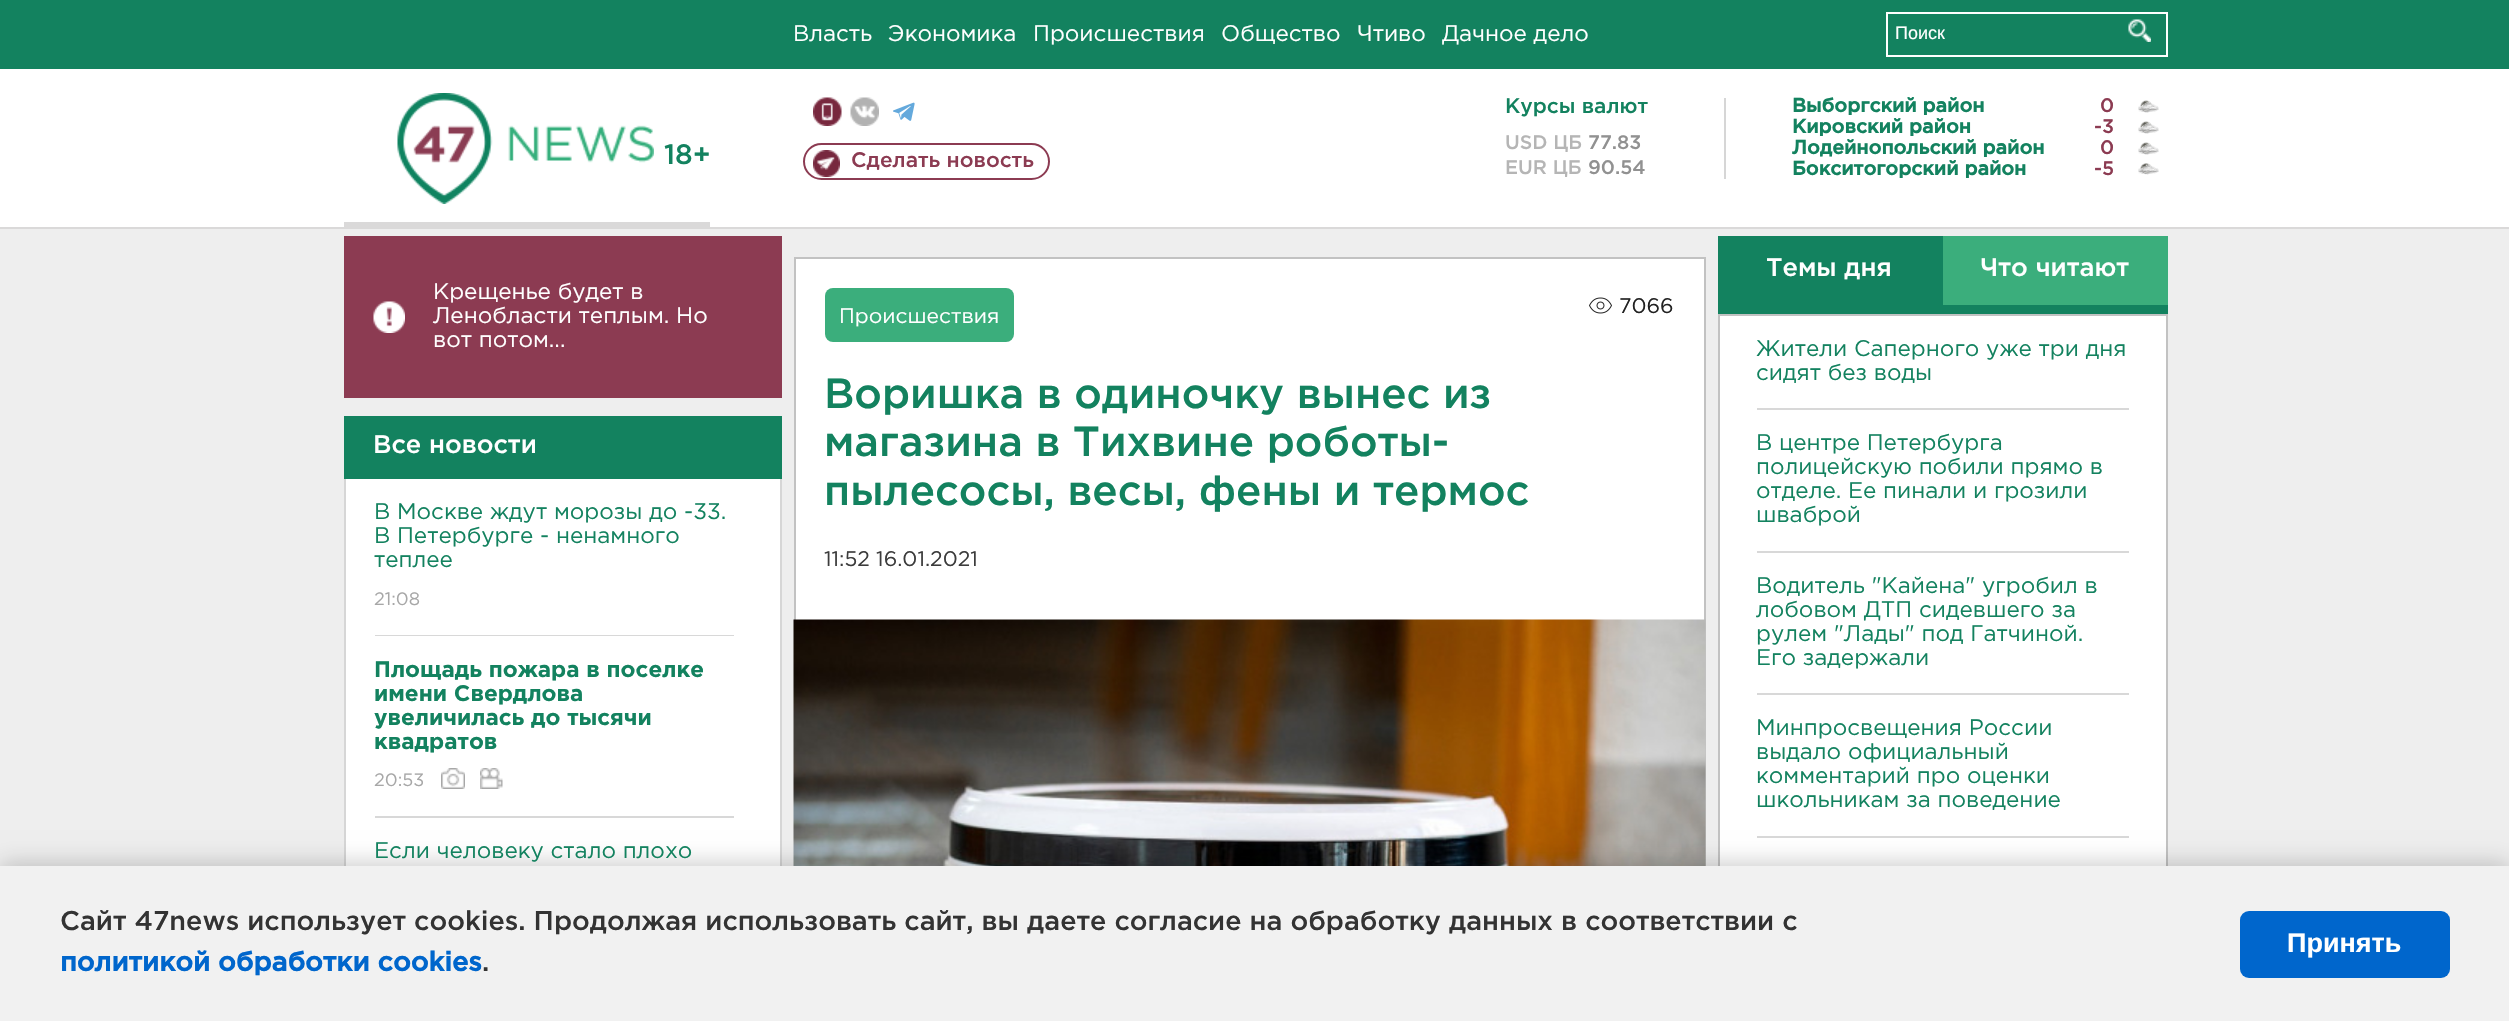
void draw(SkCanvas* canvas) {
  SkPaint paint;
  paint.setAntiAlias(true);
  auto face = [&](const char* family, int weight, float size, bool italic = false) {
    SkFontStyle style(weight, SkFontStyle::kNormal_Width,
      italic ? SkFontStyle::kItalic_Slant : SkFontStyle::kUpright_Slant);
    SkFont result(fontMgr->matchFamilyStyle(family, style), size);
    result.setSubpixel(true);
    return result;
  };
  auto paste = [&](const char* path, float x, float y, float w, float h) {
    auto image = SkImages::DeferredFromEncodedData(SkData::MakeFromFileName(path));
    canvas->drawImageRect(image, SkRect::MakeXYWH(x, y, w, h), SkSamplingOptions());
  };
  canvas->clear(0xffeeeeee);
  paint.setColor(0xff13825f);
  canvas->drawRect(SkRect::MakeXYWH(0, 0, 2509, 69), paint);
  paint.setStroke(true);
  paint.setStrokeWidth(2);
  paint.setColor(0xffffffff);
  canvas->drawRect(SkRect::MakeXYWH(1887, 13, 280, 43), paint);
  paste("img/1.png", 2128, 19, 23, 23);
  paint.setStroke(false);
  {
    const struct { float x, y, w, h; SkColor color; } items[] = {
      {0, 69, 2509, 158, 0xffffffff},
      {0, 227, 2509, 2, 0xffdad9d9},
      {344, 222, 366, 5, 0xffdad9d9},
    };
    for (auto [x, y, w, h, color] : items) {
      paint.setColor(color);
      canvas->drawRect(SkRect::MakeXYWH(x, y, w, h), paint);
    }
  }
  paste("img/2.png", 397, 93, 257, 111);
  paint.setColor(0xffd6d6d6);
  canvas->drawRect(SkRect::MakeXYWH(1724, 98, 2, 81), paint);
  paste("img/3.png", 2138, 100, 21, 13);
  paste("img/3.png", 2138, 121, 21, 13);
  paste("img/3.png", 2138, 142, 21, 13);
  paste("img/4.png", 2138, 163, 21, 12);
  paste("img/5.png", 813, 97, 29, 29);
  paste("img/6.png", 850, 97, 29, 29);
  paste("img/7.png", 893, 102, 22, 19);
  paste("img/8.png", 813, 150, 27, 27);
  paint.setStroke(true);
  paint.setColor(0xff8c3b52);
  canvas->drawRoundRect(SkRect::MakeXYWH(804, 144, 245, 35), 17.5f, 17.5f, paint);
  paint.setStroke(false);
  canvas->drawRect(SkRect::MakeXYWH(344, 236, 438, 162), paint);
  paste("img/9.png", 373, 301, 32, 32);
  {
    const struct { float x, y, w, h; SkColor color; } items[] = {
      {344, 416, 438, 63, 0xff13825f},
      {346, 479, 434, 387, 0xffffffff},
      {780, 479, 2, 387, 0xffd6d6d6},
      {344, 479, 2, 387, 0xffd6d6d6},
      {375, 635, 359, 1, 0xffd8d8d8},
      {375, 816, 359, 2, 0xffd8d8d8},
    };
    for (auto [x, y, w, h, color] : items) {
      paint.setColor(color);
      canvas->drawRect(SkRect::MakeXYWH(x, y, w, h), paint);
    }
  }
  paste("img/10.png", 441, 768, 24, 21);
  paste("img/11.png", 480, 768, 23, 21);
  paint.setColor(0xffffffff);
  canvas->drawRect(SkRect::MakeXYWH(796, 259, 908, 361), paint);
  paint.setStroke(true);
  paint.setColor(0xffc2c2c2);
  canvas->drawRect(SkRect::MakeXYWH(795, 258, 910, 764), paint);
  paste("img/12.png", 1589, 297, 23, 17);
  paint.setStroke(false);
  paint.setColor(0xff3bae7c);
  canvas->drawRoundRect(SkRect::MakeXYWH(825, 288, 189, 54), 8, 8, paint);
  paste("img/13.png", 793, 619, 913, 247);
  {
    const struct { float x, y, w, h; SkColor color; } items[] = {
      {1718, 236, 450, 78, 0xff13825f},
      {1943, 236, 225, 69, 0xff3bae7c},
      {1720, 316, 446, 550, 0xffffffff},
      {1718, 314, 450, 2, 0xffc2c2c2},
      {2166, 314, 2, 552, 0xffc2c2c2},
      {1718, 314, 2, 552, 0xffc2c2c2},
      {1757, 408, 372, 2, 0xffd8d8d8},
      {1757, 551, 372, 2, 0xffd8d8d8},
      {1757, 693, 372, 2, 0xffd8d8d8},
      {1757, 836, 372, 2, 0xffd8d8d8},
    };
    for (auto [x, y, w, h, color] : items) {
      paint.setColor(color);
      canvas->drawRect(SkRect::MakeXYWH(x, y, w, h), paint);
    }
  }
  paint.setColor(0x33000000);
  paint.setMaskFilter(SkMaskFilter::MakeBlur(kNormal_SkBlurStyle, 11));
  canvas->drawRect(SkRect::MakeXYWH(0, 863, 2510, 156), paint);
  paint.setMaskFilter(nullptr);
  paint.setColor(0xfff1f1f1);
  canvas->drawRect(SkRect::MakeXYWH(0, 866, 2509, 155), paint);
  paint.setColor(0xff0066cc);
  canvas->drawRoundRect(SkRect::MakeXYWH(2240, 911, 210, 67), 9, 9, paint);
  auto f0 = face("Gotham", 400, 22.5f);
  paint.setColor(0xffffffff);
  {
    const struct { const char* s; float x, y; } items[] = {
      {"Власть", 793, 41},
      {"Экономика", 888, 41},
      {"Происшествия", 1033, 41},
      {"Общество", 1221, 41},
      {"Чтиво", 1357, 41},
      {"Дачное дело", 1442, 41},
    };
    for (auto [s, x, y] : items) {
      canvas->drawString(s, x, y, f0, paint);
    }
  }
  auto f1 = face("Liberation Sans", 400, 18);
  canvas->drawString("Поиск", 1895, 39, f1, paint);
  auto f2 = face("Gotham", 500, 21);
  paint.setColor(0xff13825f);
  canvas->drawString("Курсы валют", 1505, 113, f2, paint);
  auto f3 = face("Gotham", 500, 19.5f);
  paint.setColor(0xffb5b5b5);
  canvas->drawString("USD ЦБ", 1505, 149, f3, paint);
  paint.setColor(0xff919191);
  canvas->drawString("77.83", 1588, 149, f3, paint);
  paint.setColor(0xffb5b5b5);
  canvas->drawString("EUR ЦБ", 1505, 174, f3, paint);
  paint.setColor(0xff919191);
  canvas->drawString("90.54", 1588, 174, f3, paint);
  auto f4 = face("Gotham", 700, 19.5f);
  paint.setColor(0xff13825f);
  canvas->drawString("Выборгский район", 1792, 112, f4, paint);
  paint.setColor(0xff8c3b52);
  canvas->drawString("0", 2100, 112, f3, paint);
  paint.setColor(0xff13825f);
  canvas->drawString("Кировский район", 1792, 133, f4, paint);
  paint.setColor(0xff8c3b52);
  canvas->drawString("-3", 2094, 133, f3, paint);
  paint.setColor(0xff13825f);
  canvas->drawString("Лодейнопольский район", 1792, 154, f4, paint);
  paint.setColor(0xff8c3b52);
  canvas->drawString("0", 2100, 154, f3, paint);
  paint.setColor(0xff13825f);
  canvas->drawString("Бокситогорский район", 1792, 175, f4, paint);
  paint.setColor(0xff8c3b52);
  canvas->drawString("-5", 2094, 175, f3, paint);
  auto f5 = face("Gotham", 500, 28);
  paint.setColor(0xff13825f);
  canvas->drawString("18+", 664, 164, f5, paint);
  paint.setColor(0xff8c3b52);
  canvas->drawString("Сделать новость", 851, 167, f2, paint);
  paint.setColor(0xffffffff);
  {
    const struct { const char* s; float x, y; } items[] = {
      {"Крещенье будет в", 433, 299},
      {"Ленобласти теплым. Но", 433, 323},
      {"вот потом...", 433, 347},
    };
    for (auto [s, x, y] : items) {
      canvas->drawString(s, x, y, f0, paint);
    }
  }
  auto f6 = face("Gotham", 500, 25.5f);
  canvas->drawString("Все новости", 373, 453, f6, paint);
  paint.setColor(0xff13825f);
  {
    const struct { const char* s; float x, y; } items[] = {
      {"В Москве ждут морозы до -33.", 374, 519},
      {"В Петербурге - ненамного", 374, 543},
      {"теплее", 374, 567},
    };
    for (auto [s, x, y] : items) {
      canvas->drawString(s, x, y, f0, paint);
    }
  }
  auto f7 = face("Gotham", 400, 18);
  paint.setColor(0xffa7a7a7);
  canvas->drawString("21:08", 374, 605, f7, paint);
  auto f8 = face("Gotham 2", 700, 22.5f);
  paint.setColor(0xff13825f);
  {
    const struct { const char* s; float x, y; } items[] = {
      {"Площадь пожара в поселке", 374, 677},
      {"имени Свердлова", 374, 701},
      {"увеличилась до тысячи", 374, 725},
      {"квадратов", 374, 749},
    };
    for (auto [s, x, y] : items) {
      canvas->drawString(s, x, y, f8, paint);
    }
  }
  paint.setColor(0xffa7a7a7);
  canvas->drawString("20:53", 374, 786, f7, paint);
  paint.setColor(0xff13825f);
  canvas->drawString("Если человеку стало плохо", 374, 858, f0, paint);
  auto f9 = face("Gotham", 400, 21);
  paint.setColor(0xff222222);
  canvas->drawString("7066", 1619, 313, f9, paint);
  paint.setColor(0xffffffff);
  canvas->drawString("Происшествия", 839, 323, f9, paint);
  auto f10 = face("Gotham", 500, 42);
  paint.setColor(0xff13825f);
  {
    const struct { const char* s; float x, y; } items[] = {
      {"Воришка в одиночку вынес из", 824, 408},
      {"магазина в Тихвине роботы-", 824, 456},
      {"пылесосы, весы, фены и термос", 824, 505},
    };
    for (auto [s, x, y] : items) {
      canvas->drawString(s, x, y, f10, paint);
    }
  }
  paint.setColor(0xff3c3c3c);
  canvas->drawString("11:52 16.01.2021", 824, 566, f9, paint);
  paint.setColor(0xffffffff);
  canvas->drawString("Темы дня", 1766, 276, f6, paint);
  canvas->drawString("Что читают", 1980, 276, f6, paint);
  paint.setColor(0xff13825f);
  {
    const struct { const char* s; float x, y; } items[] = {
      {"Жители Саперного уже три дня", 1756, 356},
      {"сидят без воды", 1756, 380},
      {"В центре Петербурга", 1756, 450},
      {"полицейскую побили прямо в", 1756, 474},
      {"отделе. Ее пинали и грозили", 1756, 498},
      {"шваброй", 1756, 522},
      {"Водитель \"Кайена\" угробил в", 1756, 593},
      {"лобовом ДТП сидевшего за", 1756, 617},
      {"рулем \"Лады\" под Гатчиной.", 1756, 641},
      {"Его задержали", 1756, 665},
      {"Минпросвещения России", 1756, 735},
      {"выдало официальный", 1756, 759},
      {"комментарий про оценки", 1756, 783},
      {"школьникам за поведение", 1756, 807},
    };
    for (auto [s, x, y] : items) {
      canvas->drawString(s, x, y, f0, paint);
    }
  }
  auto f11 = face("Gotham", 500, 27);
  paint.setColor(0xff333333);
  canvas->drawString("Сайт 47news использует cookies. Продолжая использовать сайт, вы даете согласие на обработку данных в соответствии с", 60, 930, f11, paint);
  auto f12 = face("Gotham", 700, 27);
  paint.setColor(0xff0066cc);
  canvas->drawString("политикой обработки cookies", 60, 971, f12, paint);
  paint.setColor(0xff333333);
  canvas->drawString(".", 482, 971, f11, paint);
  auto f13 = face("Liberation Sans", 700, 27);
  paint.setColor(0xffffffff);
  canvas->drawString("Принять", 2287, 952, f13, paint);
}
